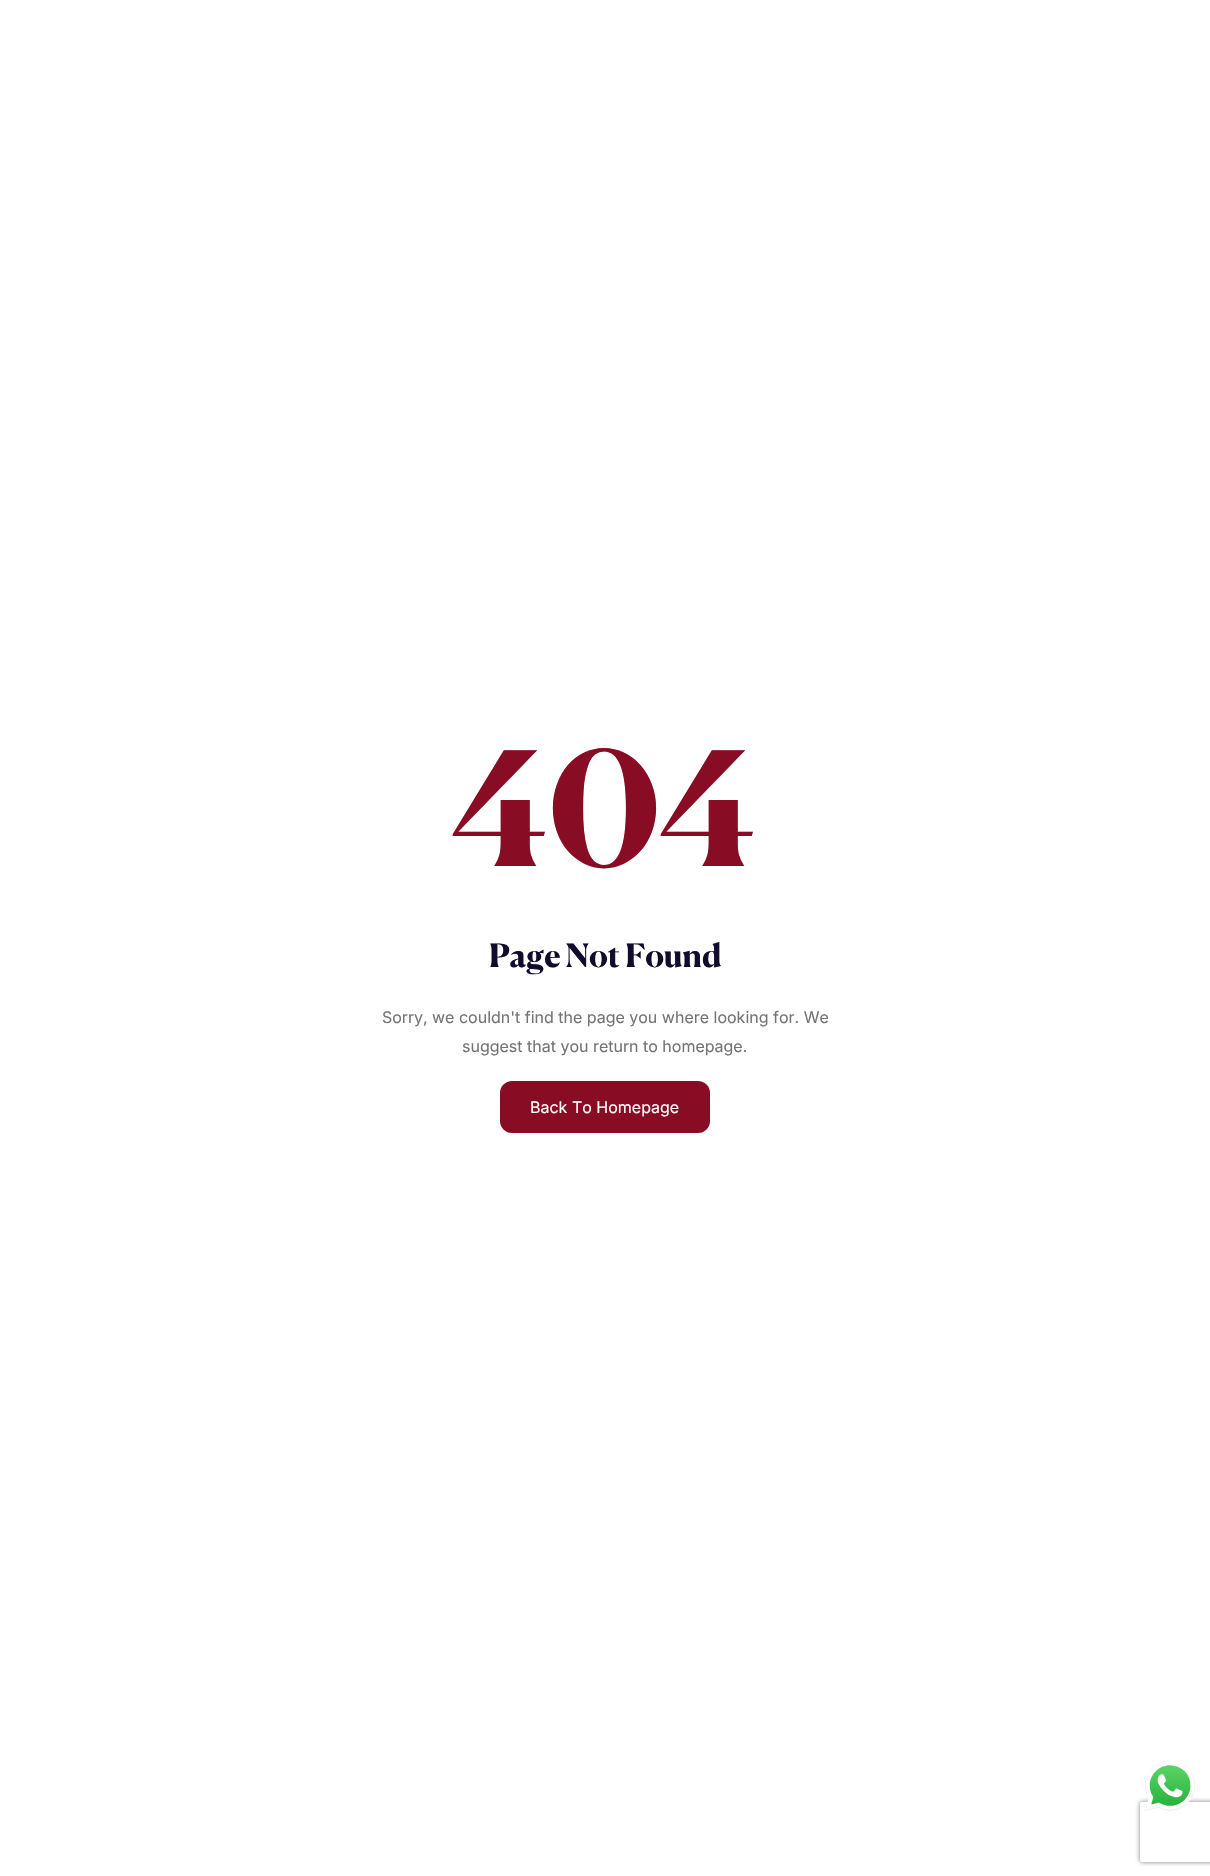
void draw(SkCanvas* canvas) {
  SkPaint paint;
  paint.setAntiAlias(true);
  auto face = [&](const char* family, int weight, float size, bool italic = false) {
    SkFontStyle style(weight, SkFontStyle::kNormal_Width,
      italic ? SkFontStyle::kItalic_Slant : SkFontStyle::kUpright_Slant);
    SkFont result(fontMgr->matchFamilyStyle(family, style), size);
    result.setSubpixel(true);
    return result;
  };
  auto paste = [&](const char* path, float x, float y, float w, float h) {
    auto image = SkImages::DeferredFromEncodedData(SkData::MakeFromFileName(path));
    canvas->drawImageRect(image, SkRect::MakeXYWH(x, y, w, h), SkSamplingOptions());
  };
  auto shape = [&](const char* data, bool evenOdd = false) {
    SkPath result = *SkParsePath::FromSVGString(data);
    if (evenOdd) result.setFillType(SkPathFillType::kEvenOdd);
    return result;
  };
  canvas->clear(0xffffffff);
  paint.setColor(0xff890c25);
  canvas->drawRoundRect(SkRect::MakeXYWH(500, 1081, 210, 52), 12, 12, paint);
  canvas->save();
  canvas->clipPath(shape("M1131 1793H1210V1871H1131ZM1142 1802H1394C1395 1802 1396 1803 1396 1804V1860C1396 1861 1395 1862 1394 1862H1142C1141 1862 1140 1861 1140 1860V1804C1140 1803 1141 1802 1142 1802Z", true), true);
  paint.setColor(0xff808080);
  paint.setMaskFilter(SkMaskFilter::MakeBlur(kNormal_SkBlurStyle, 2.5f));
  canvas->drawRoundRect(SkRect::MakeXYWH(1140, 1802, 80, 60), 2, 2, paint);
  paint.setMaskFilter(nullptr);
  canvas->restore();
  paste("img/1.png", 1145, 1761, 50, 50);
  auto f0 = face("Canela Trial", 700, 158);
  paint.setColor(0xff890c25);
  canvas->drawString("404", 453, 866, f0, paint);
  auto f1 = face("Canela Trial", 700, 32);
  paint.setColor(0xff110c2d);
  canvas->drawString("Page Not Found", 489, 967, f1, paint);
  auto f2 = face("Inter", 400, 16);
  paint.setColor(0xff737477);
  canvas->drawString("Sorry, we couldn't find the page you where looking for. We", 382, 1023, f2, paint);
  canvas->drawString("suggest that you return to homepage.", 462, 1052, f2, paint);
  paint.setColor(0xffffffff);
  canvas->drawString("Back To Homepage", 530, 1113, f2, paint);
}
